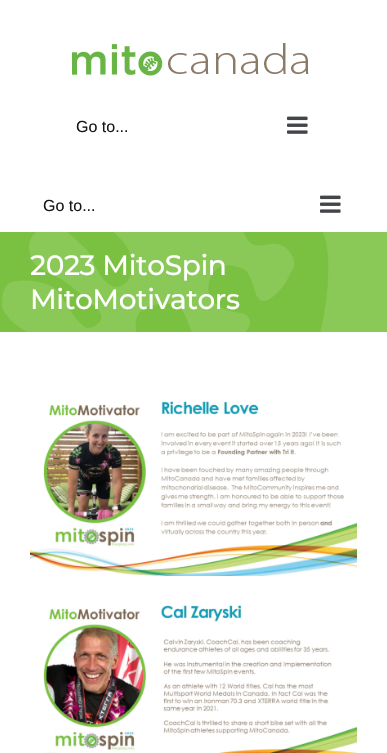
void draw(SkCanvas* canvas) {
  SkPaint paint;
  paint.setAntiAlias(true);
  auto face = [&](const char* family, int weight, float size, bool italic = false) {
    SkFontStyle style(weight, SkFontStyle::kNormal_Width,
      italic ? SkFontStyle::kItalic_Slant : SkFontStyle::kUpright_Slant);
    SkFont result(fontMgr->matchFamilyStyle(family, style), size);
    result.setSubpixel(true);
    return result;
  };
  auto writeSpaced = [&](const char* s, float x, float y, const SkFont& font, const SkPaint& ink, float letter, float word) {
    std::vector<SkGlyphID> glyphs(font.countText(s, strlen(s), SkTextEncoding::kUTF8));
    std::vector<float> xs(glyphs.size());
    font.textToGlyphs(s, strlen(s), SkTextEncoding::kUTF8, glyphs);
    font.getXPos(glyphs, xs, x);
    float extra = 0;
    for (size_t i = 0; i < glyphs.size(); i++) {
      xs[i] += extra;
      extra += letter + word * (glyphs[i] == font.unicharToGlyph(' '));
    }
    canvas->drawTextBlob(SkTextBlob::MakeFromPosHGlyphs(glyphs, xs, y, font), 0, 0, ink);
  };
  auto paste = [&](const char* path, float x, float y, float w, float h) {
    auto image = SkImages::DeferredFromEncodedData(SkData::MakeFromFileName(path));
    canvas->drawImageRect(image, SkRect::MakeXYWH(x, y, w, h), SkSamplingOptions());
  };
  canvas->clear(0xffffffff);
  paste("img/1.png", 72, 43, 237, 33);
  paste("img/2.png", 287, 116, 21, 18);
  paste("img/2.png", 320, 195, 21, 18);
  paint.setColor(0xff7ac141);
  canvas->drawRect(SkRect::MakeXYWH(0, 232, 387, 100), paint);
  paste("img/3.png", 2, 232, 385, 100);
  paste("img/4.png", 30, 401, 327, 175);
  paste("img/5.png", 43, 605, 314, 148);
  auto f0 = face("Liberation Sans", 400, 16);
  paint.setColor(0xff141617);
  canvas->drawString("Go to...", 76, 132, f0, paint);
  canvas->drawString("Go to...", 43, 211, f0, paint);
  auto f1 = face("Montserrat", 500, 28);
  paint.setColor(0xffffffff);
  writeSpaced("2023 MitoSpin", 30, 275, f1, paint, -0.4f, 0);
  writeSpaced("MitoMotivators", 30, 309, f1, paint, -0.4f, 0);
}
